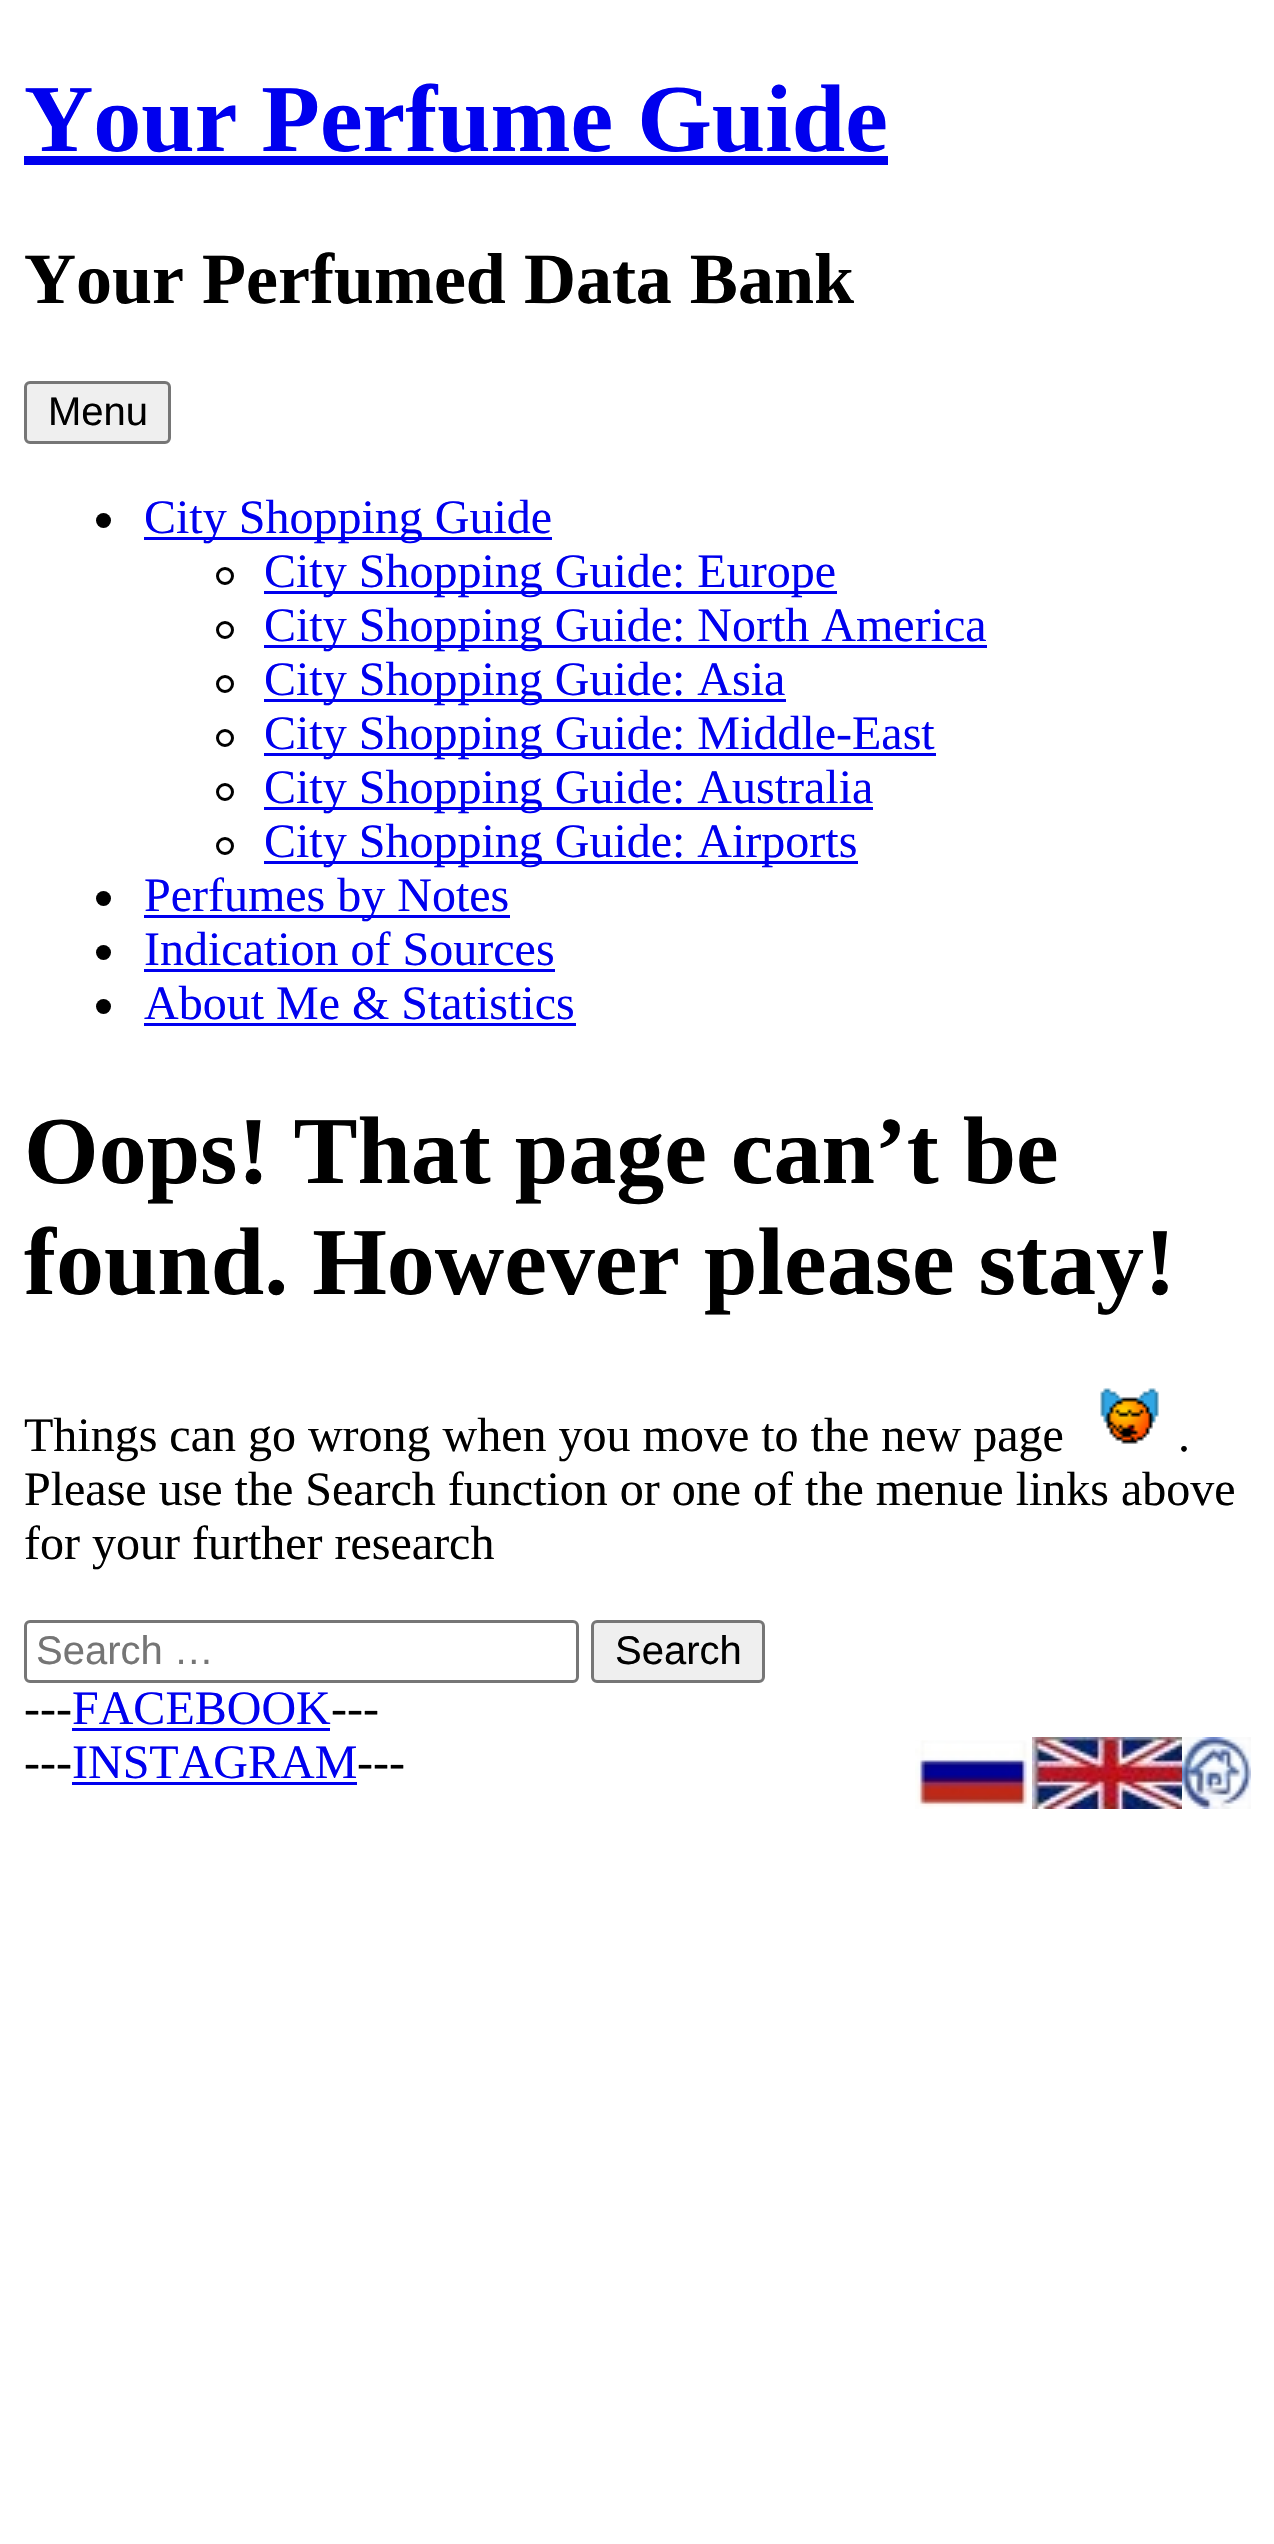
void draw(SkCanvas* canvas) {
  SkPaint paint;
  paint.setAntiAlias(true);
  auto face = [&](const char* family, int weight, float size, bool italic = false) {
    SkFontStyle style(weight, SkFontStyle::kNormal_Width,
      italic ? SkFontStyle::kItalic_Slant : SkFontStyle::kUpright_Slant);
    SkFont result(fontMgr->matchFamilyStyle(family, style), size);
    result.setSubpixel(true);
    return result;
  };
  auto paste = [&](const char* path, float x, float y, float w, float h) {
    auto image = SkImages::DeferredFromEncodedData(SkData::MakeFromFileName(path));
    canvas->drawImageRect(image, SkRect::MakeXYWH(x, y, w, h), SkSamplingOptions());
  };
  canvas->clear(0xffffffff);
  paint.setColor(0xff0000ee);
  canvas->drawRect(SkRect::MakeXYWH(24, 156, 864, 9), paint);
  paint.setColor(0xffefefef);
  canvas->drawRoundRect(SkRect::MakeXYWH(25.5f, 382.5f, 144, 60), 4.5f, 4.5f, paint);
  paint.setStroke(true);
  paint.setStrokeWidth(3);
  paint.setColor(0xff767676);
  canvas->drawRoundRect(SkRect::MakeXYWH(25.5f, 382.5f, 144, 60), 4.5f, 4.5f, paint);
  paint.setStroke(false);
  paint.setColor(0xff000000);
  canvas->drawCircle(103.5f, 520.5f, 7.5f, paint);
  paint.setColor(0xff0000ee);
  canvas->drawRect(SkRect::MakeXYWH(144, 537, 408, 3), paint);
  paint.setStroke(true);
  paint.setColor(0xff000000);
  canvas->drawCircle(225, 576, 7.5f, paint);
  paint.setStroke(false);
  paint.setColor(0xff0000ee);
  canvas->drawRect(SkRect::MakeXYWH(264, 591, 573, 3), paint);
  paint.setStroke(true);
  paint.setColor(0xff000000);
  canvas->drawCircle(225, 630, 7.5f, paint);
  paint.setStroke(false);
  paint.setColor(0xff0000ee);
  canvas->drawRect(SkRect::MakeXYWH(264, 645, 723, 3), paint);
  paint.setStroke(true);
  paint.setColor(0xff000000);
  canvas->drawCircle(225, 684, 7.5f, paint);
  paint.setStroke(false);
  paint.setColor(0xff0000ee);
  canvas->drawRect(SkRect::MakeXYWH(264, 699, 522, 3), paint);
  paint.setStroke(true);
  paint.setColor(0xff000000);
  canvas->drawCircle(225, 738, 7.5f, paint);
  paint.setStroke(false);
  paint.setColor(0xff0000ee);
  canvas->drawRect(SkRect::MakeXYWH(264, 753, 672, 3), paint);
  paint.setStroke(true);
  paint.setColor(0xff000000);
  canvas->drawCircle(225, 792, 7.5f, paint);
  paint.setStroke(false);
  paint.setColor(0xff0000ee);
  canvas->drawRect(SkRect::MakeXYWH(264, 807, 609, 3), paint);
  paint.setStroke(true);
  paint.setColor(0xff000000);
  canvas->drawCircle(225, 846, 7.5f, paint);
  paint.setStroke(false);
  paint.setColor(0xff0000ee);
  canvas->drawRect(SkRect::MakeXYWH(264, 861, 594, 3), paint);
  paint.setColor(0xff000000);
  canvas->drawCircle(103.5f, 898.5f, 7.5f, paint);
  paint.setColor(0xff0000ee);
  canvas->drawRect(SkRect::MakeXYWH(144, 915, 366, 3), paint);
  paint.setColor(0xff000000);
  canvas->drawCircle(103.5f, 952.5f, 7.5f, paint);
  paint.setColor(0xff0000ee);
  canvas->drawRect(SkRect::MakeXYWH(144, 969, 411, 3), paint);
  paint.setColor(0xff000000);
  canvas->drawCircle(103.5f, 1006.5f, 7.5f, paint);
  paint.setColor(0xff0000ee);
  canvas->drawRect(SkRect::MakeXYWH(144, 1023, 432, 3), paint);
  paste("img/1.png", 1100, 1388, 59, 56);
  paint.setStroke(true);
  paint.setColor(0xff767676);
  canvas->drawRoundRect(SkRect::MakeXYWH(25.5f, 1621.5f, 552, 60), 4.5f, 4.5f, paint);
  paint.setStroke(false);
  paint.setColor(0xffefefef);
  canvas->drawRoundRect(SkRect::MakeXYWH(592.5f, 1621.5f, 171, 60), 4.5f, 4.5f, paint);
  paint.setStroke(true);
  paint.setColor(0xff767676);
  canvas->drawRoundRect(SkRect::MakeXYWH(592.5f, 1621.5f, 171, 60), 4.5f, 4.5f, paint);
  paint.setStroke(false);
  paint.setColor(0xff0000ee);
  canvas->drawRect(SkRect::MakeXYWH(72, 1728, 258, 3), paint);
  canvas->drawRect(SkRect::MakeXYWH(72, 1782, 285, 3), paint);
  paste("img/2.png", 915, 1740, 115, 69);
  paste("img/3.png", 1032, 1737, 150, 72);
  paste("img/4.png", 1182, 1737, 69, 72);
  auto f0 = face("Liberation Serif", 700, 96);
  canvas->drawString("Your Perfume Guide", 24, 151, f0, paint);
  auto f1 = face("Liberation Serif", 700, 72);
  paint.setColor(0xff000000);
  canvas->drawString("Your Perfumed Data Bank", 24, 303, f1, paint);
  auto f2 = face("Liberation Sans", 400, 40);
  canvas->drawString("Menu", 48, 425, f2, paint);
  auto f3 = face("Liberation Serif", 400, 48);
  paint.setColor(0xff0000ee);
  {
    const struct { const char* s; float x, y; } items[] = {
      {"City Shopping Guide", 144, 533},
      {"City Shopping Guide: Europe", 264, 587},
      {"City Shopping Guide: North America", 264, 641},
      {"City Shopping Guide: Asia", 264, 695},
      {"City Shopping Guide: Middle-East", 264, 749},
      {"City Shopping Guide: Australia", 264, 803},
      {"City Shopping Guide: Airports", 264, 857},
      {"Perfumes by Notes", 144, 911},
      {"Indication of Sources", 144, 965},
      {"About Me & Statistics", 144, 1019},
    };
    for (auto [s, x, y] : items) {
      canvas->drawString(s, x, y, f3, paint);
    }
  }
  paint.setColor(0xff000000);
  canvas->drawString("Oops! That page can’t be", 24, 1183, f0, paint);
  canvas->drawString("found. However please stay!", 24, 1294, f0, paint);
  {
    const struct { const char* s; float x, y; } items[] = {
      {"Things can go wrong when you move to the new page", 24, 1451},
      {".", 1178, 1451},
      {"Please use the Search function or one of the menue links above", 24, 1505},
      {"for your further research", 24, 1559},
    };
    for (auto [s, x, y] : items) {
      canvas->drawString(s, x, y, f3, paint);
    }
  }
  paint.setColor(0xff757575);
  canvas->drawString("Search …", 36, 1664, f2, paint);
  paint.setColor(0xff000000);
  canvas->drawString("Search", 615, 1664, f2, paint);
  canvas->drawString("---", 24, 1724, f3, paint);
  paint.setColor(0xff0000ee);
  canvas->drawString("FACEBOOK", 72, 1724, f3, paint);
  paint.setColor(0xff000000);
  canvas->drawString("---", 331, 1724, f3, paint);
  canvas->drawString("---", 24, 1778, f3, paint);
  paint.setColor(0xff0000ee);
  canvas->drawString("INSTAGRAM", 72, 1778, f3, paint);
  paint.setColor(0xff000000);
  canvas->drawString("---", 357, 1778, f3, paint);
}
